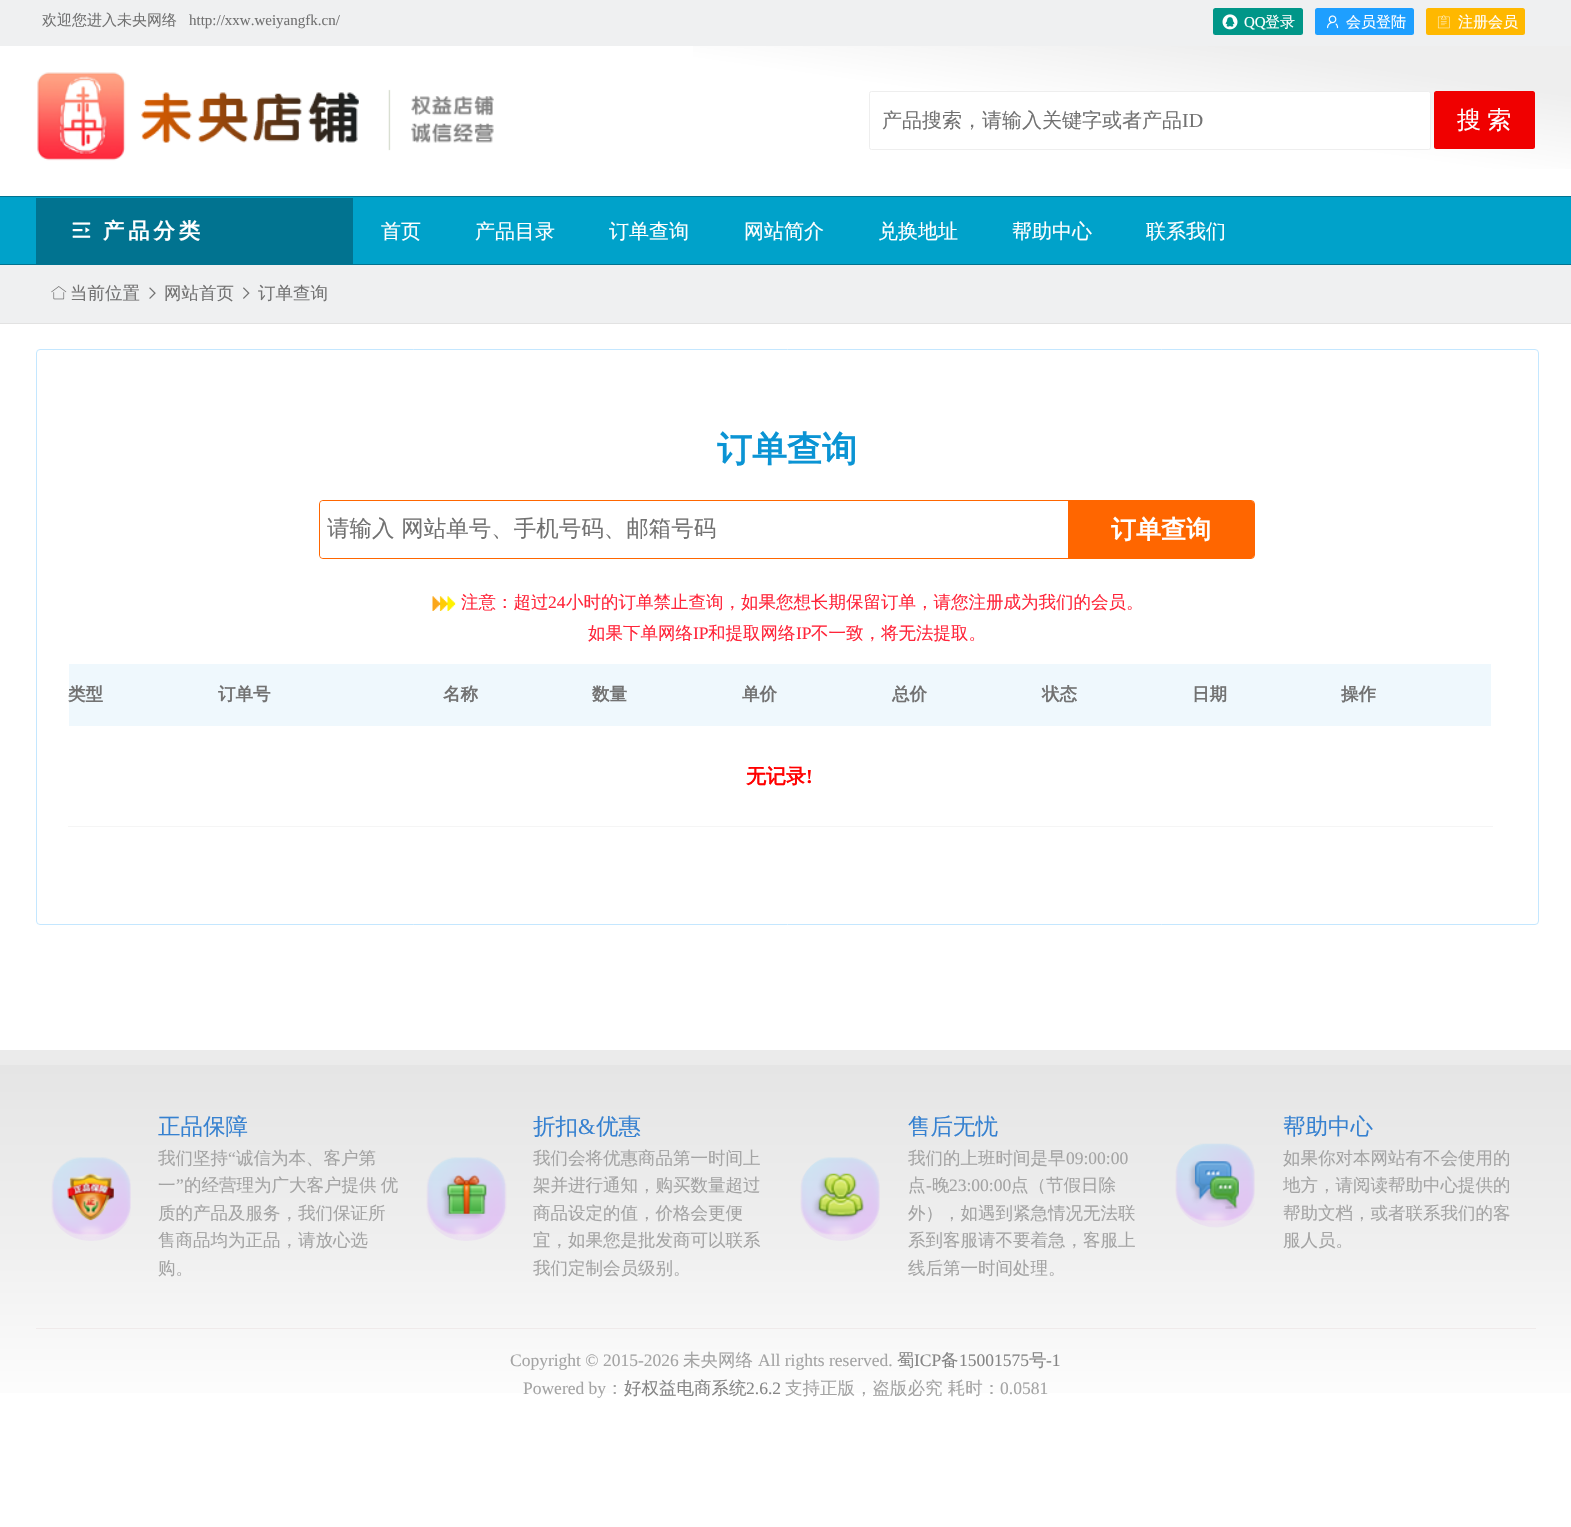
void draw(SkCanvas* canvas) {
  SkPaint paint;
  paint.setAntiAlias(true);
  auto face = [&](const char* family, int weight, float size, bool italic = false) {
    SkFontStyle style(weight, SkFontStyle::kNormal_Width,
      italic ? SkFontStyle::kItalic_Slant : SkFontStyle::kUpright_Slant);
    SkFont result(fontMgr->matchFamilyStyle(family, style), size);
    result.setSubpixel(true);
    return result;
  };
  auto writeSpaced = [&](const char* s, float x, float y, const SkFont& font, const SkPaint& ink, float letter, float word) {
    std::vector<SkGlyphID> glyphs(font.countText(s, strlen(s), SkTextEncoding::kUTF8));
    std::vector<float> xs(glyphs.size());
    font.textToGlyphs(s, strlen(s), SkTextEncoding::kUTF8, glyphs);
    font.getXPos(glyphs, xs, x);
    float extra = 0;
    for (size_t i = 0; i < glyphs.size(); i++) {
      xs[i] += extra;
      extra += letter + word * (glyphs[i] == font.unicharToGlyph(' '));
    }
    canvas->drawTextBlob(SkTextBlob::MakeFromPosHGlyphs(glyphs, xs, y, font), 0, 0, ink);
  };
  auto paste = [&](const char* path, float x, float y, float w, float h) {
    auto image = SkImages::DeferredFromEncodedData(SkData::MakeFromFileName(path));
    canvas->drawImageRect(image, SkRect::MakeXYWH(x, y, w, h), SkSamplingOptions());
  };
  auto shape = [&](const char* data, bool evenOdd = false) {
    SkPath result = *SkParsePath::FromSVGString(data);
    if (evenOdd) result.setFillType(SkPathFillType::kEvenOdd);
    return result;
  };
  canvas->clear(0xffffffff);
  paint.setColor(0xffeff0f1);
  canvas->drawRect(SkRect::MakeXYWH(0, 0, 1571, 46), paint);
  paint.setColor(0xff009688);
  canvas->drawRoundRect(SkRect::MakeXYWH(1213, 8, 90, 27), 2.5f, 2.5f, paint);
  paste("img/1.png", 1222, 14, 16, 16);
  paint.setColor(0xff1e9fff);
  canvas->drawRoundRect(SkRect::MakeXYWH(1315, 8, 99, 27), 2.5f, 2.5f, paint);
  paste("img/2.png", 1327, 15, 12, 14);
  paint.setColor(0xffffb800);
  canvas->drawRoundRect(SkRect::MakeXYWH(1426, 8, 99, 27), 2.5f, 2.5f, paint);
  paste("img/3.png", 1437, 15, 13, 14);
  {
    const SkColor colors[] = {0xffffffff, 0xffeeeeee};
    const float stops[] = {0.69f, 0.89f};
    const SkPoint ends[] = {{756, 370}, {816, -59}};
    paint.setShader(SkGradientShader::MakeLinear(ends, colors, stops, 2, SkTileMode::kClamp));
    paint.setAlpha(255);
  }
  canvas->drawRect(SkRect::MakeXYWH(693, 46, 878, 123), paint);
  paste("img/4.png", 37, 72, 457, 89);
  paint.setShader(nullptr);
  paint.setColor(0xffffffff);
  canvas->drawRoundRect(SkRect::MakeXYWH(869.5f, 91.5f, 561, 58), 2, 2, paint);
  paint.setStroke(true);
  paint.setStrokeWidth(1);
  paint.setColor(0xffeeeeee);
  canvas->drawRoundRect(SkRect::MakeXYWH(869.5f, 91.5f, 561, 58), 2, 2, paint);
  paint.setStroke(false);
  paint.setColor(0xfff00000);
  canvas->drawRoundRect(SkRect::MakeXYWH(1434, 91, 101, 58), 2.5f, 2.5f, paint);
  {
    const struct { float x, y, w, h; SkColor color; } items[] = {
      {0, 197, 1571, 67, 0xff00a2ca},
      {0, 196, 1571, 1, 0xff017390},
      {0, 264, 1571, 1, 0xff017390},
      {36, 198, 317, 66, 0xff017390},
    };
    for (auto [x, y, w, h, color] : items) {
      paint.setColor(color);
      canvas->drawRect(SkRect::MakeXYWH(x, y, w, h), paint);
    }
  }
  paste("img/5.png", 72, 222, 19, 16);
  paint.setColor(0xffeff0f1);
  canvas->drawRect(SkRect::MakeXYWH(0, 265, 1571, 58), paint);
  paint.setColor(0xffe2e2e2);
  canvas->drawRect(SkRect::MakeXYWH(0, 323, 1571, 1), paint);
  paste("img/6.png", 51, 286, 16, 14);
  paste("img/7.png", 149, 287, 7, 12);
  paste("img/8.png", 243, 287, 7, 12);
  paint.setStroke(true);
  paint.setColor(0xffc4e7ff);
  canvas->drawRoundRect(SkRect::MakeXYWH(36.5f, 349.5f, 1502, 575), 3.5f, 3.5f, paint);
  paint.setColor(0xffff6600);
  canvas->drawRoundRect(SkRect::MakeXYWH(319.5f, 500.5f, 935, 58), 3.5f, 3.5f, paint);
  paint.setStroke(false);
  paint.setColor(0xffffffff);
  canvas->drawRoundRect(SkRect::MakeXYWH(320, 501, 755, 57), 4, 4, paint);
  paint.setColor(0xffff6600);
  canvas->drawPath(shape("M1068 501H1251.5C1253 501 1254 502 1254 503.5V555.5C1254 557 1253 558 1251.5 558H1068Z"), paint);
  paste("img/9.png", 432, 596, 24, 15);
  paint.setColor(0xffeff8fd);
  canvas->drawRect(SkRect::MakeXYWH(69, 664, 1422, 62), paint);
  paint.setColor(0xfff5f5f5);
  canvas->drawRect(SkRect::MakeXYWH(68, 826, 1425, 1), paint);
  {
    const SkColor colors[] = {0xffffffff, 0xffefefef, 0xffe5e5e5};
    const float stops[] = {0, 0.5f, 1};
    const SkPoint ends[] = {{786, 1421}, {786, 1065}};
    paint.setShader(SkGradientShader::MakeLinear(ends, colors, stops, 3, SkTileMode::kClamp));
    paint.setAlpha(255);
  }
  canvas->drawRect(SkRect::MakeXYWH(0, 1065, 1571, 328), paint);
  paint.setShader(nullptr);
  paint.setColor(0xffebebeb);
  canvas->drawRect(SkRect::MakeXYWH(0, 1050, 1571, 15), paint);
  paint.setColor(0xffefeaea);
  canvas->drawRect(SkRect::MakeXYWH(36, 1328, 1500, 1), paint);
  paste("img/10.png", 51, 1157, 80, 84);
  paste("img/11.png", 426, 1157, 81, 84);
  paste("img/12.png", 800, 1157, 80, 84);
  paste("img/13.png", 1175, 1143, 80, 85);
  auto f0 = face("WenQuanYi Zen Hei", 500, 15);
  paint.setColor(0xff727272);
  canvas->drawString("欢迎您进入未央网络", 42, 25, f0, paint);
  auto f1 = face("Liberation Serif", 400, 15);
  canvas->drawString("http://xxw.weiyangfk.cn/", 189, 25, f1, paint);
  paint.setColor(0xffffffff);
  canvas->drawString("QQ", 1244, 27, f1, paint);
  {
    const struct { const char* s; float x, y; } items[] = {
      {"登录", 1265, 27},
      {"会员登陆", 1346, 27},
      {"注册会员", 1458, 27},
    };
    for (auto [s, x, y] : items) {
      canvas->drawString(s, x, y, f0, paint);
    }
  }
  auto f2 = face("WenQuanYi Zen Hei", 500, 20);
  paint.setColor(0xff727272);
  canvas->drawString("产品搜索，请输入关键字或者产品", 882, 127, f2, paint);
  auto f3 = face("Liberation Serif", 400, 20);
  canvas->drawString("ID", 1182, 127, f3, paint);
  auto f4 = face("WenQuanYi Zen Hei", 500, 24);
  paint.setColor(0xffffffff);
  writeSpaced("搜 索", 1457, 128, f4, paint, 0, -1);
  auto f5 = face("WenQuanYi Zen Hei", 700, 21.25f);
  writeSpaced("产品分类", 103, 238, f5, paint, 4, 0);
  {
    const struct { const char* s; float x, y; } items[] = {
      {"首页", 381, 238},
      {"产品目录", 475, 238},
      {"订单查询", 609, 238},
      {"网站简介", 744, 238},
      {"兑换地址", 878, 238},
      {"帮助中心", 1012, 238},
      {"联系我们", 1146, 238},
    };
    for (auto [s, x, y] : items) {
      canvas->drawString(s, x, y, f2, paint);
    }
  }
  auto f6 = face("WenQuanYi Zen Hei", 500, 17.5f);
  paint.setColor(0xff727272);
  {
    const struct { const char* s; float x, y; } items[] = {
      {"当前位置", 70, 299},
      {"网站首页", 164, 299},
      {"订单查询", 258, 299},
    };
    for (auto [s, x, y] : items) {
      canvas->drawString(s, x, y, f6, paint);
    }
  }
  auto f7 = face("WenQuanYi Zen Hei", 700, 35);
  paint.setColor(0xff0b94d4);
  canvas->drawString("订单查询", 717, 461, f7, paint);
  auto f8 = face("WenQuanYi Zen Hei", 500, 22.5f);
  paint.setColor(0xff727272);
  canvas->drawString("请输入 网站单号、手机号码、邮箱号码", 327, 536, f8, paint);
  auto f9 = face("WenQuanYi Zen Hei", 700, 25);
  paint.setColor(0xffffffff);
  canvas->drawString("订单查询", 1111, 538, f9, paint);
  paint.setColor(0xffff253a);
  canvas->drawString("注意：超过", 461, 608, f6, paint);
  auto f10 = face("Liberation Serif", 400, 17.5f);
  canvas->drawString("24", 548, 608, f10, paint);
  canvas->drawString("小时的订单禁止查询，如果您想长期保留订单，请您注册成为我们的会员。", 566, 608, f6, paint);
  canvas->drawString("如果下单网络", 588, 639, f6, paint);
  canvas->drawString("IP", 693, 639, f10, paint);
  canvas->drawString("和提取网络", 708, 639, f6, paint);
  canvas->drawString("IP", 796, 639, f10, paint);
  canvas->drawString("不一致，将无法提取。", 811, 639, f6, paint);
  auto f11 = face("WenQuanYi Zen Hei", 700, 17.5f);
  paint.setColor(0xff727272);
  {
    const struct { const char* s; float x, y; } items[] = {
      {"类型", 68, 700},
      {"订单号", 218, 700},
      {"名称", 443, 700},
      {"数量", 592, 700},
      {"单价", 742, 700},
      {"总价", 892, 700},
      {"状态", 1042, 700},
      {"日期", 1192, 700},
      {"操作", 1341, 700},
    };
    for (auto [s, x, y] : items) {
      canvas->drawString(s, x, y, f11, paint);
    }
  }
  auto f12 = face("WenQuanYi Zen Hei", 700, 20);
  paint.setColor(0xffff0000);
  canvas->drawString("无记录", 746, 783, f12, paint);
  auto f13 = face("Liberation Serif", 700, 20);
  canvas->drawString("!", 806, 783, f13, paint);
  paint.setColor(0xff3681d0);
  canvas->drawString("正品保障", 158, 1134, f8, paint);
  paint.setColor(0xffa4a4a4);
  canvas->drawString("我们坚持", 158, 1164, f6, paint);
  canvas->drawString("“", 228, 1164, f10, paint);
  canvas->drawString("诚信为本、客户第", 236, 1164, f6, paint);
  canvas->drawString("一", 158, 1191, f6, paint);
  canvas->drawString("”", 176, 1191, f10, paint);
  writeSpaced("的经营理为广大客户提供 优", 184, 1191, f6, paint, 0, -1);
  {
    const struct { const char* s; float x, y; } items[] = {
      {"质的产品及服务，我们保证所", 158, 1219},
      {"售商品均为正品，请放心选", 158, 1246},
      {"购。", 158, 1274},
    };
    for (auto [s, x, y] : items) {
      canvas->drawString(s, x, y, f6, paint);
    }
  }
  paint.setColor(0xff3681d0);
  canvas->drawString("折扣", 533, 1134, f8, paint);
  auto f14 = face("Liberation Serif", 400, 22.5f);
  canvas->drawString("&", 578, 1134, f14, paint);
  canvas->drawString("优惠", 596, 1134, f8, paint);
  paint.setColor(0xffa4a4a4);
  {
    const struct { const char* s; float x, y; } items[] = {
      {"我们会将优惠商品第一时间上", 533, 1164},
      {"架并进行通知，购买数量超过", 533, 1191},
      {"商品设定的值，价格会更便", 533, 1219},
      {"宜，如果您是批发商可以联系", 533, 1246},
      {"我们定制会员级别。", 533, 1274},
    };
    for (auto [s, x, y] : items) {
      canvas->drawString(s, x, y, f6, paint);
    }
  }
  paint.setColor(0xff3681d0);
  canvas->drawString("售后无忧", 908, 1134, f8, paint);
  paint.setColor(0xffa4a4a4);
  canvas->drawString("我们的上班时间是早", 908, 1164, f6, paint);
  canvas->drawString("09:00:00", 1066, 1164, f10, paint);
  canvas->drawString("点", 908, 1191, f6, paint);
  canvas->drawString("-", 926, 1191, f10, paint);
  canvas->drawString("晚", 932, 1191, f6, paint);
  canvas->drawString("23:00:00", 949, 1191, f10, paint);
  {
    const struct { const char* s; float x, y; } items[] = {
      {"点（节假日除", 1011, 1191},
      {"外），如遇到紧急情况无法联", 908, 1219},
      {"系到客服请不要着急，客服上", 908, 1246},
      {"线后第一时间处理。", 908, 1274},
    };
    for (auto [s, x, y] : items) {
      canvas->drawString(s, x, y, f6, paint);
    }
  }
  paint.setColor(0xff3681d0);
  canvas->drawString("帮助中心", 1283, 1134, f8, paint);
  paint.setColor(0xffa4a4a4);
  {
    const struct { const char* s; float x, y; } items[] = {
      {"如果你对本网站有不会使用的", 1283, 1164},
      {"地方，请阅读帮助中心提供的", 1283, 1191},
      {"帮助文档，或者联系我们的客", 1283, 1219},
      {"服人员。", 1283, 1246},
    };
    for (auto [s, x, y] : items) {
      canvas->drawString(s, x, y, f6, paint);
    }
  }
  canvas->drawString("Copyright © 2015-2026", 510, 1366, f10, paint);
  canvas->drawString("未央网络", 683, 1366, f6, paint);
  canvas->drawString("All rights reserved.", 758, 1366, f10, paint);
  paint.setColor(0xff858585);
  canvas->drawString("蜀", 897, 1366, f6, paint);
  canvas->drawString("ICP", 914, 1366, f10, paint);
  canvas->drawString("备", 941, 1366, f6, paint);
  canvas->drawString("15001575", 959, 1366, f10, paint);
  canvas->drawString("号", 1029, 1366, f6, paint);
  canvas->drawString("-1", 1046, 1366, f10, paint);
  paint.setColor(0xffa4a4a4);
  canvas->drawString("Powered by", 523, 1394, f10, paint);
  canvas->drawString("：", 606, 1394, f6, paint);
  paint.setColor(0xff858585);
  canvas->drawString("好权益电商系统", 624, 1394, f6, paint);
  canvas->drawString("2.6.2", 746, 1394, f10, paint);
  paint.setColor(0xffa4a4a4);
  canvas->drawString("支持正版，盗版必究 耗时：", 785, 1394, f6, paint);
  canvas->drawString("0.0581", 1000, 1394, f10, paint);
}
